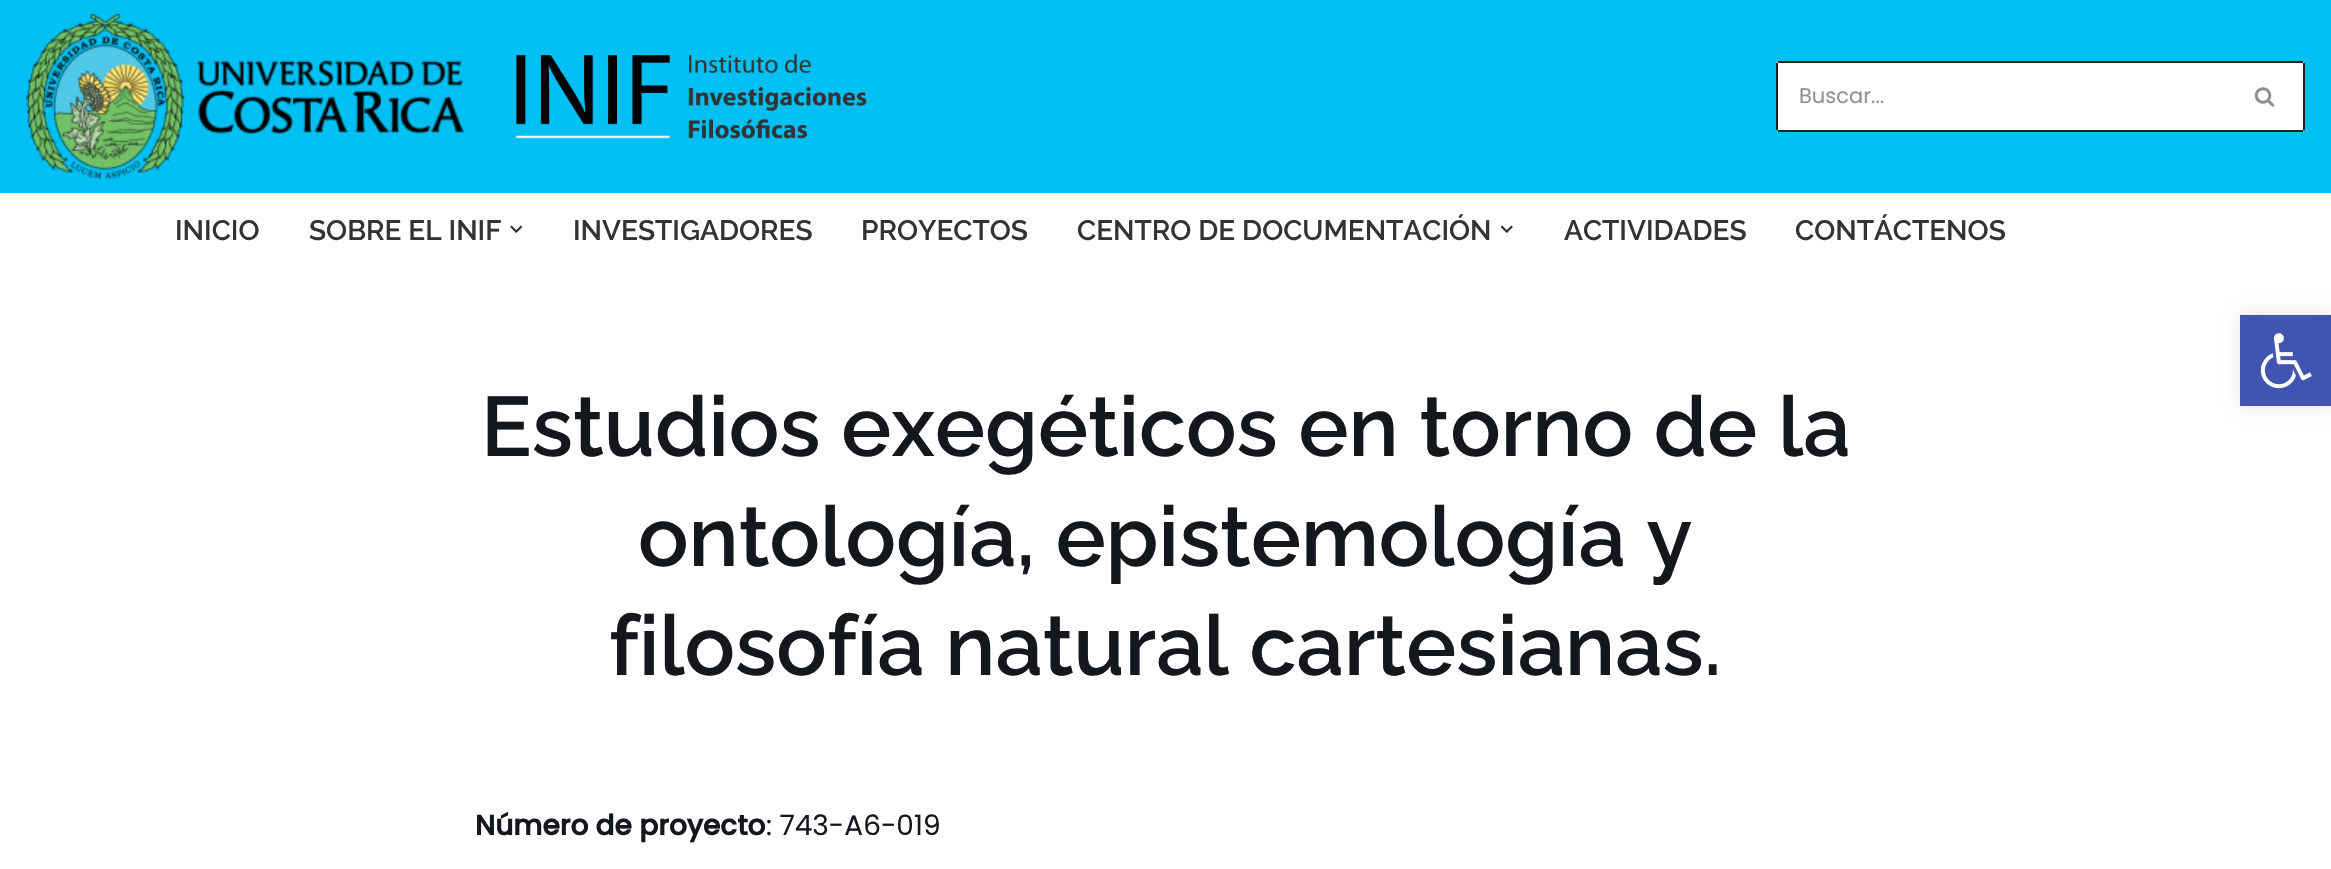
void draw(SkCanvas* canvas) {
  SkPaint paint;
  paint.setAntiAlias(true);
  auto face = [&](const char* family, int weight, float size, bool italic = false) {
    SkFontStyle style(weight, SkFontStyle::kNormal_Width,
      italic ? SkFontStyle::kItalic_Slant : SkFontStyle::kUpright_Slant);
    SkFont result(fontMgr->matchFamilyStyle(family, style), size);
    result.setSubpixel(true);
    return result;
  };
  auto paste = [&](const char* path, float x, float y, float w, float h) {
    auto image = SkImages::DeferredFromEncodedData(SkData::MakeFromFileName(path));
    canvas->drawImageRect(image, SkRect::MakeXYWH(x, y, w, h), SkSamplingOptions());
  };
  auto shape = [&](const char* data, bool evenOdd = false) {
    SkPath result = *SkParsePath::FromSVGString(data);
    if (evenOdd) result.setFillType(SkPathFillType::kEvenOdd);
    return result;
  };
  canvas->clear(0xffffffff);
  paint.setColor(0xff00c0f3);
  canvas->drawRect(SkRect::MakeXYWH(0, 0, 2331, 193), paint);
  paste("img/1.png", 26, 14, 438, 165);
  paste("img/2.png", 516, 54, 351, 85);
  paint.setColor(0xffffffff);
  canvas->drawPath(shape("M1780 61H2226V131H1780C1778 131 1776 129 1776 127V65C1776 63 1778 61 1780 61Z"), paint);
  {
    const struct { float x, y, w, h; SkColor color; } items[] = {
      {1778, 61, 448, 2, 0xff222222},
      {1778, 130, 448, 2, 0xff222222},
      {1776, 63, 2, 67, 0xff222222},
    };
    for (auto [x, y, w, h, color] : items) {
      paint.setColor(color);
      canvas->drawRect(SkRect::MakeXYWH(x, y, w, h), paint);
    }
  }
  paint.setColor(0xffffffff);
  canvas->drawPath(shape("M2226 61H2301C2303 61 2305 63 2305 65V127C2305 129 2303 131 2301 131H2226Z"), paint);
  {
    const struct { float x, y, w, h; SkColor color; } items[] = {
      {2226, 61, 77, 2, 0xff222222},
      {2303, 63, 2, 67, 0xff222222},
      {2226, 130, 77, 2, 0xff222222},
    };
    for (auto [x, y, w, h, color] : items) {
      paint.setColor(color);
      canvas->drawRect(SkRect::MakeXYWH(x, y, w, h), paint);
    }
  }
  paste("img/3.png", 2254, 87, 21, 20);
  paste("img/4.png", 510, 225, 13, 8);
  paste("img/5.png", 1500, 225, 13, 8);
  paint.setColor(0x1a000000);
  paint.setMaskFilter(SkMaskFilter::MakeBlur(kNormal_SkBlurStyle, 9));
  canvas->drawRect(SkRect::MakeXYWH(2240, 315, 91, 91), paint);
  paint.setMaskFilter(nullptr);
  paint.setColor(0xff4054b2);
  canvas->drawRect(SkRect::MakeXYWH(2240, 315, 91, 91), paint);
  paste("img/6.png", 2260, 333, 52, 56);
  auto f0 = face("Poppins", 400, 21);
  paint.setColor(0xff919191);
  canvas->drawString("Buscar...", 1799, 103, f0, paint);
  auto f1 = face("Raleway", 600, 28);
  paint.setColor(0xff333333);
  {
    const struct { const char* s; float x, y; } items[] = {
      {"INICIO", 175, 240},
      {"SOBRE EL INIF", 309, 240},
      {"INVESTIGADORES", 573, 240},
      {"PROYECTOS", 861, 240},
      {"CENTRO DE DOCUMENTACIÓN", 1077, 240},
      {"ACTIVIDADES", 1564, 240},
      {"CONTÁCTENOS", 1795, 240},
    };
    for (auto [s, x, y] : items) {
      canvas->drawString(s, x, y, f1, paint);
    }
  }
  auto f2 = face("Raleway", 600, 84);
  paint.setColor(0xff14171c);
  {
    const struct { const char* s; float x, y; } items[] = {
      {"Estudios exegéticos en torno de la", 481, 456},
      {"ontología, epistemología y", 638, 566},
      {"filosofía natural cartesianas.", 609, 675},
    };
    for (auto [s, x, y] : items) {
      canvas->drawString(s, x, y, f2, paint);
    }
  }
  auto f3 = face("Poppins", 700, 28);
  canvas->drawString("Número de proyecto", 475, 835, f3, paint);
  auto f4 = face("Poppins", 400, 28);
  canvas->drawString(": 743-A6-019", 766, 835, f4, paint);
}
